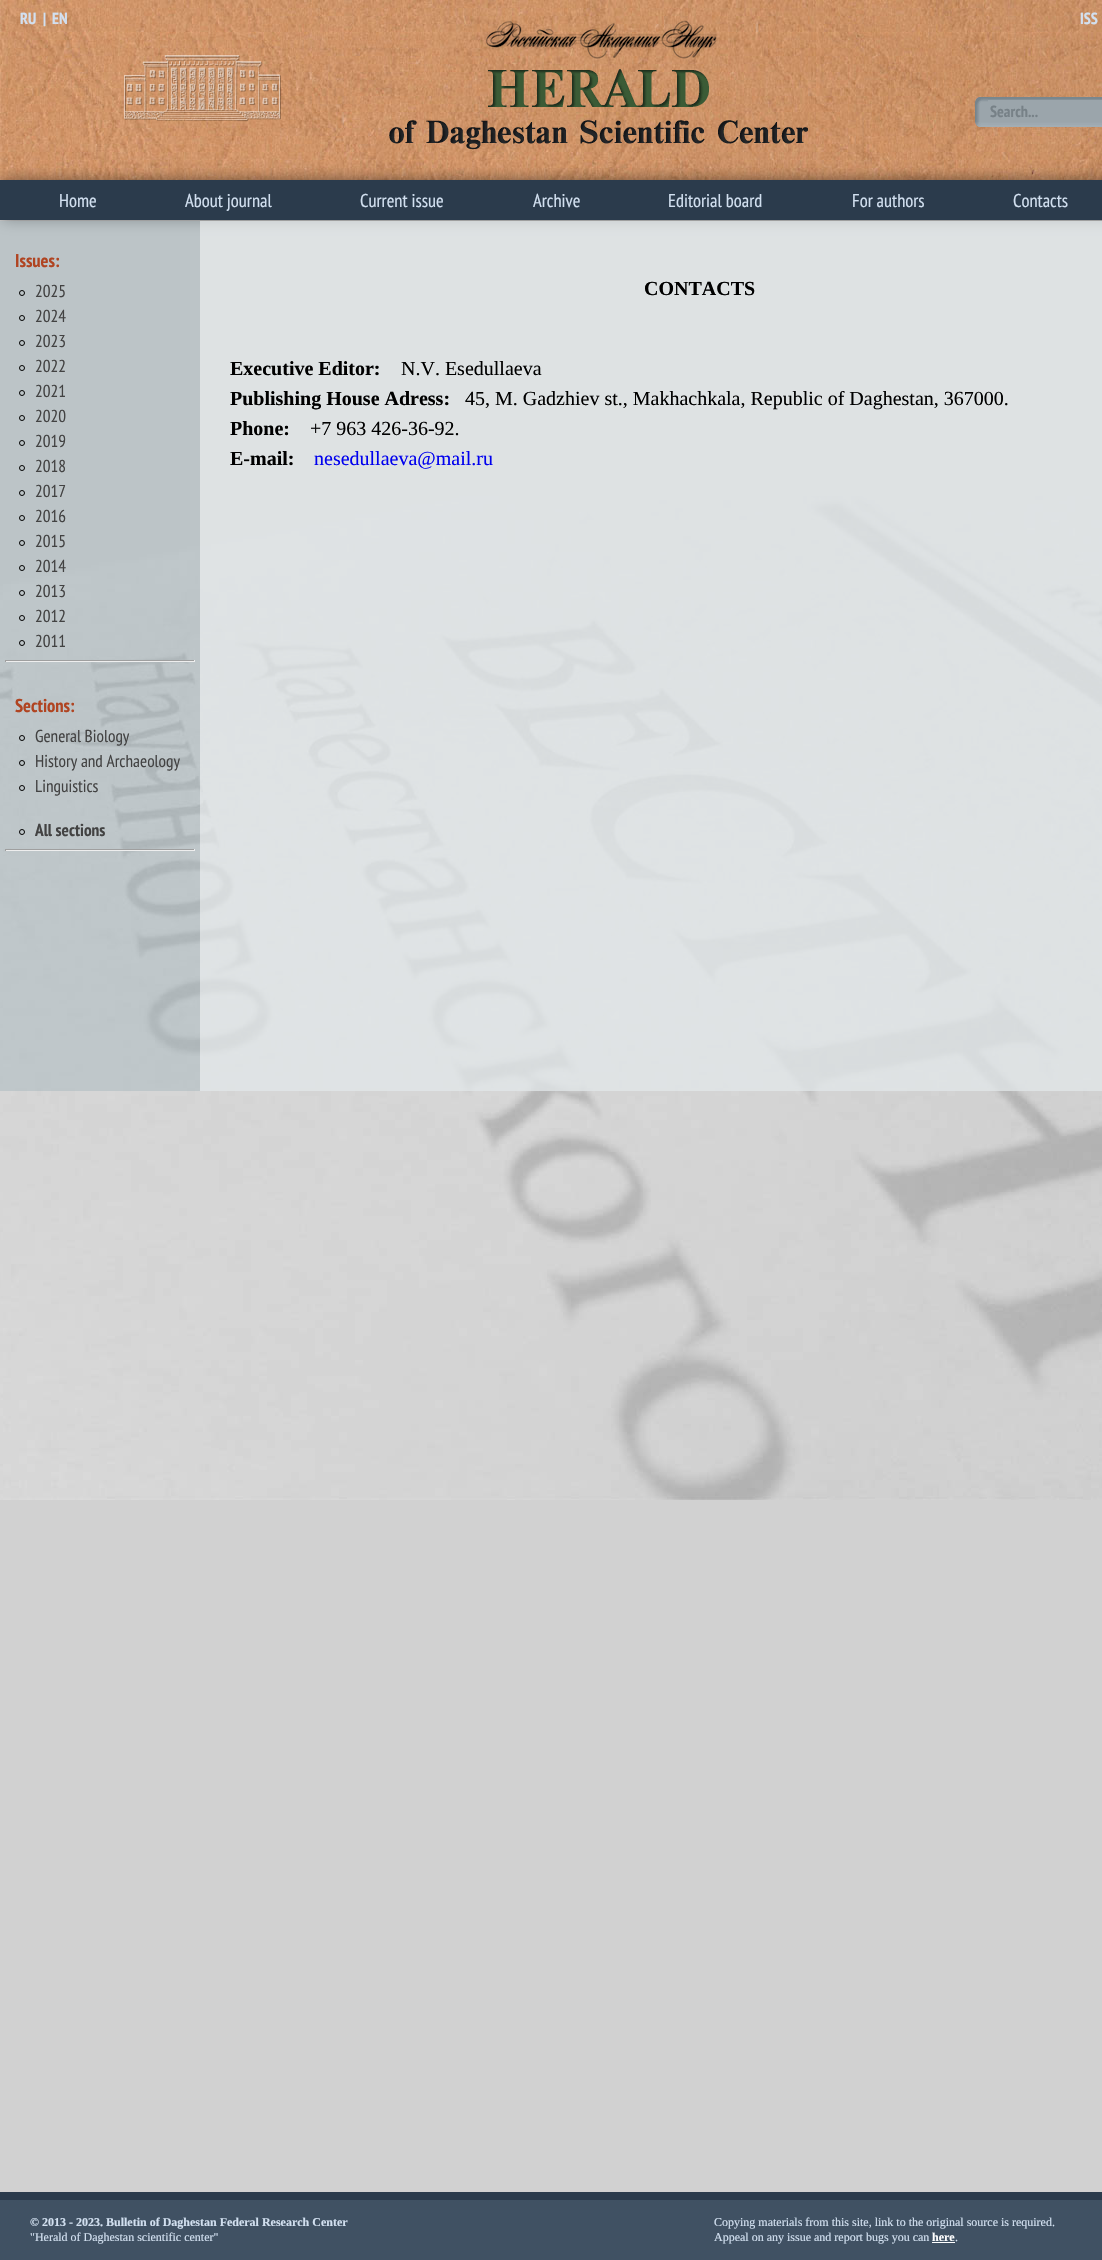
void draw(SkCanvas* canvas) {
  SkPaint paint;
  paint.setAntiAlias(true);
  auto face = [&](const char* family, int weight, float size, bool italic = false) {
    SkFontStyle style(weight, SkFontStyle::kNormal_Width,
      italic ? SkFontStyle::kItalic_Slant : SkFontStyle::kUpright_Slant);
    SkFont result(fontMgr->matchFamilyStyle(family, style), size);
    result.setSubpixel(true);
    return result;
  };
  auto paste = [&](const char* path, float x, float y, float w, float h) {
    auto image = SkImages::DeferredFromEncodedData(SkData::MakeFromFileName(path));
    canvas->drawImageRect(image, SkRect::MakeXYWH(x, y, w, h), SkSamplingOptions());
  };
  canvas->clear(0xffd1d1d1);
  paste("img/1.png", 0, 496, 1102, 1004);
  paste("img/2.png", 0, 0, 1102, 180);
  paste("img/3.png", 124, 55, 157, 66);
  paste("img/4.png", 389, 20, 419, 130);
  paste("img/5.png", 975, 97, 13, 30);
  paste("img/6.png", 988, 97, 114, 30);
  paint.setColor(0xff9ba5ab);
  canvas->drawRect(SkRect::MakeXYWH(988, 100, 114, 2), paint);
  paint.setColor(0x80000000);
  paint.setMaskFilter(SkMaskFilter::MakeBlur(kNormal_SkBlurStyle, 7.5f));
  canvas->drawRect(SkRect::MakeXYWH(2, 180, 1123, 40), paint);
  paint.setMaskFilter(nullptr);
  paint.setColor(0xff2b3b4c);
  canvas->drawRect(SkRect::MakeXYWH(0, 180, 1102, 40), paint);
  paint.setColor(0x80a7b7bd);
  canvas->drawRect(SkRect::MakeXYWH(0, 221, 1102, 870), paint);
  paint.setStroke(true);
  paint.setStrokeWidth(1);
  paint.setColor(0xff000000);
  canvas->drawCircle(22, 293, 2.5f, paint);
  canvas->drawCircle(22, 318, 2.5f, paint);
  canvas->drawCircle(22, 343, 2.5f, paint);
  canvas->drawCircle(22, 368, 2.5f, paint);
  canvas->drawCircle(22, 393, 2.5f, paint);
  canvas->drawCircle(22, 418, 2.5f, paint);
  canvas->drawCircle(22, 443, 2.5f, paint);
  canvas->drawCircle(22, 468, 2.5f, paint);
  canvas->drawCircle(22, 493, 2.5f, paint);
  canvas->drawCircle(22, 518, 2.5f, paint);
  canvas->drawCircle(22, 543, 2.5f, paint);
  canvas->drawCircle(22, 568, 2.5f, paint);
  canvas->drawCircle(22, 593, 2.5f, paint);
  canvas->drawCircle(22, 618, 2.5f, paint);
  canvas->drawCircle(22, 643, 2.5f, paint);
  paint.setStroke(false);
  {
    const struct { float x, y, w, h; SkColor color; } items[] = {
      {5, 660, 190, 1, 0xff9f9f9f},
      {194, 660, 1, 2, 0xffeeeeee},
      {5, 661, 190, 1, 0xffeeeeee},
      {5, 660, 1, 2, 0xff9f9f9f},
    };
    for (auto [x, y, w, h, color] : items) {
      paint.setColor(color);
      canvas->drawRect(SkRect::MakeXYWH(x, y, w, h), paint);
    }
  }
  paint.setStroke(true);
  paint.setColor(0xff000000);
  canvas->drawCircle(22, 738, 2.5f, paint);
  canvas->drawCircle(22, 763, 2.5f, paint);
  canvas->drawCircle(22, 788, 2.5f, paint);
  canvas->drawCircle(22, 832, 2.5f, paint);
  paint.setStroke(false);
  {
    const struct { float x, y, w, h; SkColor color; } items[] = {
      {5, 849, 190, 1, 0xff9f9f9f},
      {194, 849, 1, 2, 0xffeeeeee},
      {5, 850, 190, 1, 0xffeeeeee},
      {5, 849, 1, 2, 0xff9f9f9f},
      {200, 221, 902, 870, 0x80ffffff},
      {0, 2192, 1102, 8, 0xff2b3b4c},
      {0, 2200, 1102, 60, 0xff405163},
      {932, 2242, 23, 1, 0xffffffff},
    };
    for (auto [x, y, w, h, color] : items) {
      paint.setColor(color);
      canvas->drawRect(SkRect::MakeXYWH(x, y, w, h), paint);
    }
  }
  auto f0 = face("PT Sans Narrow", 700, 16);
  paint.setColor(0xffd2e0f0);
  {
    const struct { const char* s; float x, y; } items[] = {
      {"RU", 20, 24},
      {"|", 43, 24},
      {"EN", 52, 24},
      {"ISS", 1080, 24},
    };
    for (auto [s, x, y] : items) {
      canvas->drawString(s, x, y, f0, paint);
    }
  }
  paint.setColor(0xff778187);
  canvas->drawString("Search...", 990, 117, f0, paint);
  auto f1 = face("PT Sans Narrow", 400, 18.5f);
  paint.setColor(0xffd2e0f0);
  {
    const struct { const char* s; float x, y; } items[] = {
      {"Home", 59, 207},
      {"About journal", 185, 207},
      {"Current issue", 360, 207},
      {"Archive", 533, 207},
      {"Editorial board", 668, 207},
      {"For authors", 852, 207},
      {"Contacts", 1013, 207},
    };
    for (auto [s, x, y] : items) {
      canvas->drawString(s, x, y, f1, paint);
    }
  }
  auto f2 = face("PT Sans Narrow", 700, 18.5f);
  paint.setColor(0xffb04421);
  canvas->drawString("Issues:", 15, 267, f2, paint);
  auto f3 = face("PT Sans Narrow", 400, 17.25f);
  paint.setColor(0xff424242);
  {
    const struct { const char* s; float x, y; } items[] = {
      {"2025", 35, 297},
      {"2024", 35, 322},
      {"2023", 35, 347},
      {"2022", 35, 372},
      {"2021", 35, 397},
      {"2020", 35, 422},
      {"2019", 35, 447},
      {"2018", 35, 472},
      {"2017", 35, 497},
      {"2016", 35, 522},
      {"2015", 35, 547},
      {"2014", 35, 572},
      {"2013", 35, 597},
      {"2012", 35, 622},
      {"2011", 35, 647},
    };
    for (auto [s, x, y] : items) {
      canvas->drawString(s, x, y, f3, paint);
    }
  }
  paint.setColor(0xffb04421);
  canvas->drawString("Sections:", 15, 712, f2, paint);
  paint.setColor(0xff424242);
  {
    const struct { const char* s; float x, y; } items[] = {
      {"General Biology", 35, 742},
      {"History and Archaeology", 35, 767},
      {"Linguistics", 35, 792},
    };
    for (auto [s, x, y] : items) {
      canvas->drawString(s, x, y, f3, paint);
    }
  }
  auto f4 = face("PT Sans Narrow", 700, 17.25f);
  canvas->drawString("All sections", 35, 836, f4, paint);
  auto f5 = face("Liberation Serif", 700, 20);
  paint.setColor(0xff000000);
  canvas->drawString("CONTACTS", 644, 295, f5, paint);
  canvas->drawString("Executive Editor:", 230, 375, f5, paint);
  auto f6 = face("Liberation Serif", 400, 20);
  canvas->drawString("N.V. Esedullaeva", 401, 375, f6, paint);
  canvas->drawString("Publishing House Adress:", 230, 405, f5, paint);
  canvas->drawString("45, M. Gadzhiev st., Makhachkala, Republic of Daghestan, 367000.", 465, 405, f6, paint);
  canvas->drawString("Phone:", 230, 435, f5, paint);
  canvas->drawString("+7 963 426-36-92.", 310, 435, f6, paint);
  canvas->drawString("E-mail:", 230, 465, f5, paint);
  paint.setColor(0xff0000ee);
  canvas->drawString("nesedullaeva@mail.ru", 314, 465, f6, paint);
  auto f7 = face("Liberation Serif", 700, 12);
  paint.setColor(0xffd2e0f0);
  canvas->drawString("© 2013 - 2023. Bulletin of Daghestan Federal Research Center", 30, 2226, f7, paint);
  auto f8 = face("Liberation Serif", 400, 12);
  {
    const struct { const char* s; float x, y; } items[] = {
      {"\"Herald of Daghestan scientific center\"", 30, 2241},
      {"Copying materials from this site, link to the original source is required.", 714, 2226},
      {"Appeal on any issue and report bugs you can", 714, 2241},
    };
    for (auto [s, x, y] : items) {
      canvas->drawString(s, x, y, f8, paint);
    }
  }
  paint.setColor(0xffffffff);
  canvas->drawString("here", 932, 2241, f7, paint);
  paint.setColor(0xffd2e0f0);
  canvas->drawString(".", 955, 2241, f8, paint);
}
